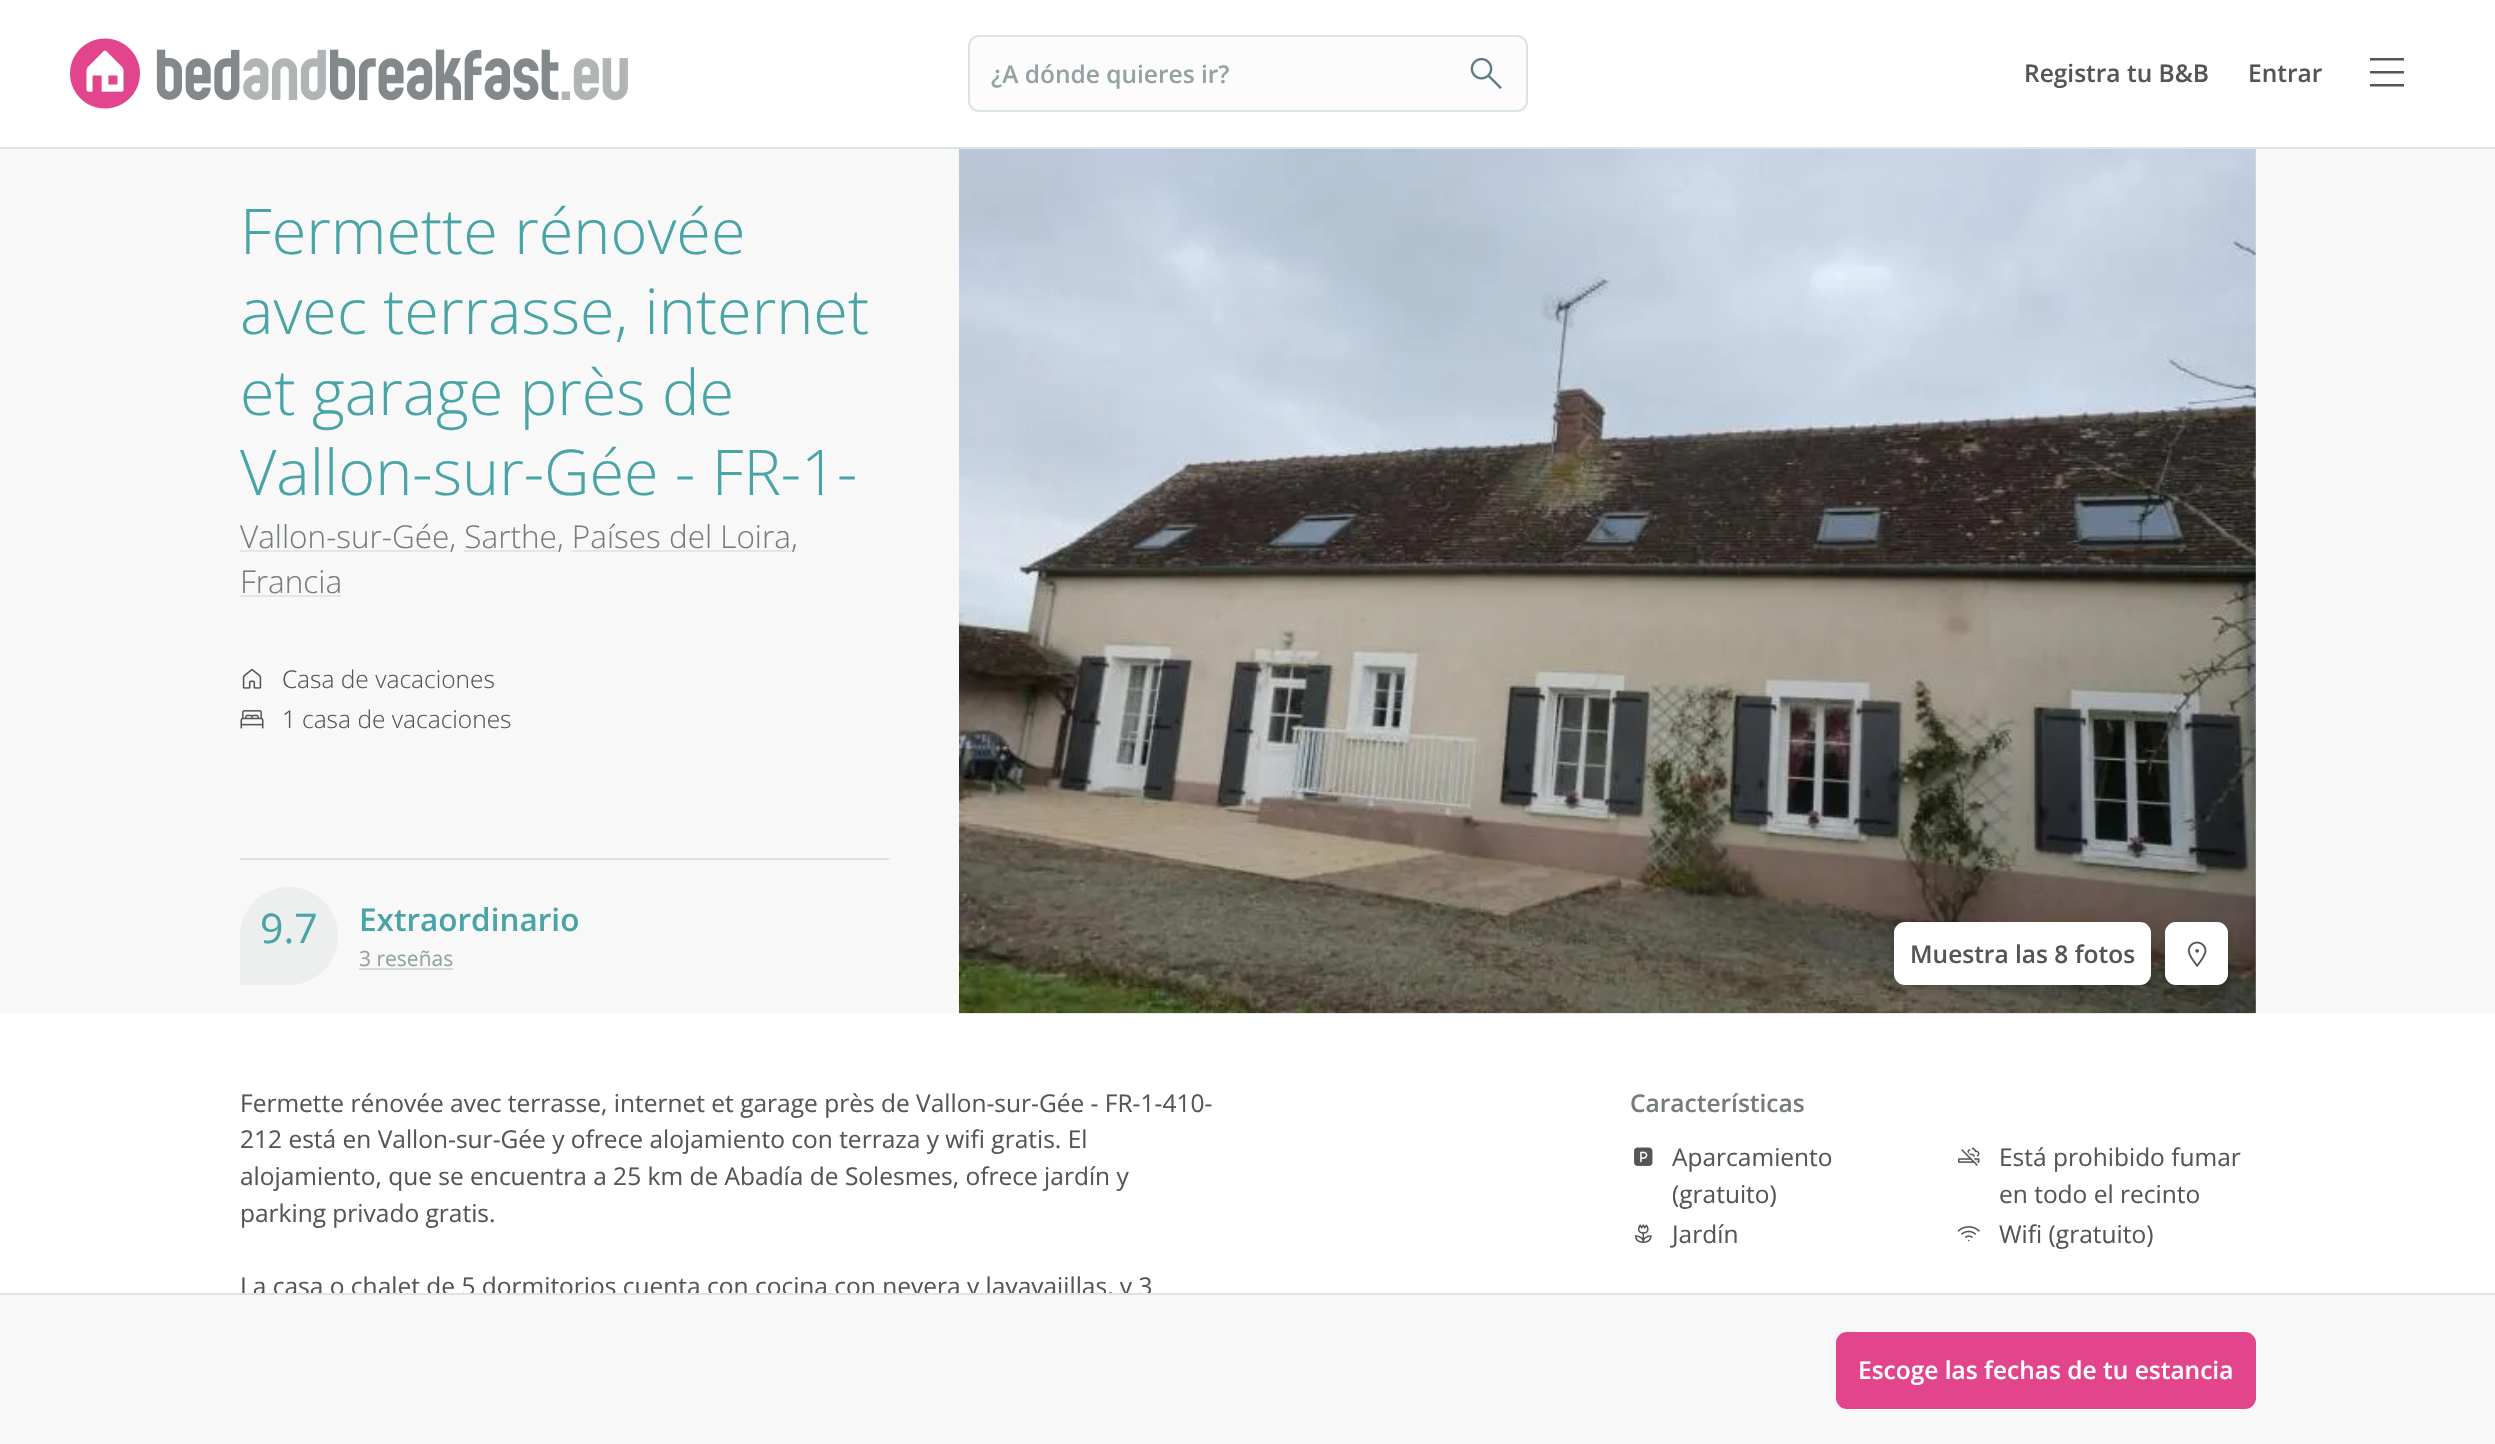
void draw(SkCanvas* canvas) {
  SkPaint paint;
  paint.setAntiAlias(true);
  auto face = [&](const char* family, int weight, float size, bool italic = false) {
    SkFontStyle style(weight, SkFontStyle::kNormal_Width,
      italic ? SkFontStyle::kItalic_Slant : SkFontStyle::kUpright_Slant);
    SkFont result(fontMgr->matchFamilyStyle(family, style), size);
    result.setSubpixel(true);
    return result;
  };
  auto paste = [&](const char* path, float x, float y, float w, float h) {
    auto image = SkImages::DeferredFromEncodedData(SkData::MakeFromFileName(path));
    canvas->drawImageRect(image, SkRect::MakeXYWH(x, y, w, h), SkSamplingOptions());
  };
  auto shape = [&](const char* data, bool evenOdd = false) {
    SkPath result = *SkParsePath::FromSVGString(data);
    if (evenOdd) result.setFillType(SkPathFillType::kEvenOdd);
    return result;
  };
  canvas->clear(0xffffffff);
  paint.setColor(0xffd9e4e5);
  canvas->drawRect(SkRect::MakeXYWH(0, 147, 2495, 2), paint);
  paste("img/1.png", 70, 38, 558, 71);
  paint.setColor(0xfffcfcfc);
  canvas->drawRoundRect(SkRect::MakeXYWH(969, 36, 558, 75), 10, 10, paint);
  paint.setStroke(true);
  paint.setStrokeWidth(2);
  paint.setColor(0xffd9e4e5);
  canvas->drawRoundRect(SkRect::MakeXYWH(969, 36, 558, 75), 10, 10, paint);
  paste("img/2.png", 1470, 57, 32, 32);
  paint.setStroke(false);
  paint.setColor(0xff555555);
  canvas->drawPath(shape("M2370 58V60.5H2404V58ZM2370 71V73.5H2404V71ZM2370 84V86.5H2404V84Z"), paint);
  {
    const struct { float x, y, w, h; SkColor color; } items[] = {
      {0, 149, 2495, 864, 0xfff8f8f8},
      {240, 550, 210, 2, 0xffe4e7e7},
      {240, 595, 101, 2, 0xffe4e7e7},
    };
    for (auto [x, y, w, h, color] : items) {
      paint.setColor(color);
      canvas->drawRect(SkRect::MakeXYWH(x, y, w, h), paint);
    }
  }
  paste("img/3.png", 242, 668, 20, 21);
  paste("img/4.png", 240, 710, 24, 19);
  paint.setColor(0xffd9e4e5);
  canvas->drawRect(SkRect::MakeXYWH(240, 858, 649, 2), paint);
  paint.setColor(0xffedefef);
  canvas->drawPath(shape("M289 887C316 887 338 909 338 936C338 963 316 985 289 985H240V936C240 909 262 887 289 887Z"), paint);
  paint.setColor(0xffd7d9d9);
  canvas->drawRect(SkRect::MakeXYWH(359, 968, 94, 2), paint);
  paste("img/5.png", 959, 149, 1297, 865);
  paste("img/6.png", 959, 149, 1297, 865);
  paint.setColor(0x26000000);
  paint.setMaskFilter(SkMaskFilter::MakeBlur(kNormal_SkBlurStyle, 4.5f));
  canvas->drawRoundRect(SkRect::MakeXYWH(1894, 926, 257, 63), 11, 11, paint);
  paint.setMaskFilter(nullptr);
  paint.setColor(0xffffffff);
  canvas->drawRoundRect(SkRect::MakeXYWH(1895, 923, 255, 61), 10, 10, paint);
  paint.setStroke(true);
  canvas->drawRoundRect(SkRect::MakeXYWH(1895, 923, 255, 61), 10, 10, paint);
  paint.setStroke(false);
  paint.setColor(0x26000000);
  paint.setMaskFilter(SkMaskFilter::MakeBlur(kNormal_SkBlurStyle, 4.5f));
  canvas->drawRoundRect(SkRect::MakeXYWH(2165, 926, 63, 63), 11, 11, paint);
  paint.setMaskFilter(nullptr);
  paint.setColor(0xffffffff);
  canvas->drawRoundRect(SkRect::MakeXYWH(2166, 923, 61, 61), 10, 10, paint);
  paint.setStroke(true);
  canvas->drawRoundRect(SkRect::MakeXYWH(2166, 923, 61, 61), 10, 10, paint);
  paste("img/7.png", 2187, 941, 20, 27);
  paste("img/8.png", 1634, 1147, 19, 19);
  paste("img/9.png", 1958, 1147, 22, 19);
  paste("img/10.png", 1634, 1224, 18, 19);
  paste("img/11.png", 1957, 1226, 23, 16);
  auto f0 = face("Open Sans", 600, 24.5f);
  paint.setStroke(false);
  paint.setColor(0xff95a2a3);
  canvas->drawString("¿A dónde quieres ir?", 991, 83, f0, paint);
  paint.setColor(0xff555555);
  canvas->drawString("Registra tu B&B", 2024, 82, f0, paint);
  canvas->drawString("Entrar", 2248, 82, f0, paint);
  auto f1 = face("Open Sans", 300, 63);
  paint.setColor(0xff49a4a6);
  {
    const struct { const char* s; float x, y; } items[] = {
      {"Fermette rénovée", 240, 254},
      {"avec terrasse, internet", 240, 334},
      {"et garage près de", 240, 415},
      {"Vallon-sur-Gée - FR-1-", 240, 495},
    };
    for (auto [s, x, y] : items) {
      canvas->drawString(s, x, y, f1, paint);
    }
  }
  auto f2 = face("Open Sans", 300, 31.5f);
  paint.setColor(0xff757c7c);
  canvas->drawString("Vallon-sur-Gée, Sarthe, Países del Loira,", 240, 548, f2, paint);
  paint.setColor(0xffe4e7e7);
  canvas->drawRect(SkRect::MakeXYWH(464, 550, 93, 2), paint);
  canvas->drawRect(SkRect::MakeXYWH(572, 550, 219, 2), paint);
  paint.setColor(0xff757c7c);
  canvas->drawString("Francia", 240, 593, f2, paint);
  auto f3 = face("Noto Sans", 300, 24.5f);
  paint.setColor(0xff555555);
  canvas->drawString("C", 282, 688, f3, paint);
  auto f4 = face("Open Sans", 300, 24.5f);
  canvas->drawString("asa de vacaciones", 297, 688, f4, paint);
  canvas->drawString("1", 282, 728, f3, paint);
  canvas->drawString("casa de vacaciones", 302, 728, f4, paint);
  auto f5 = face("Open Sans", 400, 41);
  paint.setColor(0xff49a4a6);
  canvas->drawString("9.7", 260, 943, f5, paint);
  auto f6 = face("Open Sans", 600, 31.5f);
  canvas->drawString("Extraordinario", 359, 931, f6, paint);
  auto f7 = face("Open Sans", 400, 21);
  paint.setColor(0xff95a2a3);
  canvas->drawString("3 reseñas", 359, 966, f7, paint);
  paint.setColor(0xff555555);
  canvas->drawString("Muestra las 8 fotos", 1910, 963, f0, paint);
  auto f8 = face("Open Sans", 400, 24.5f);
  {
    const struct { const char* s; float x, y; } items[] = {
      {"Fermette rénovée avec terrasse, internet et garage près de Vallon-sur-Gée - FR-1-410-", 240, 1112},
      {"212 está en Vallon-sur-Gée y ofrece alojamiento con terraza y wifi gratis. El", 240, 1148},
      {"alojamiento, que se encuentra a 25 km de Abadía de Solesmes, ofrece jardín y", 240, 1185},
      {"parking privado gratis.", 240, 1222},
      {"La casa o chalet de 5 dormitorios cuenta con cocina con nevera y lavavajillas, y 3", 240, 1295},
    };
    for (auto [s, x, y] : items) {
      canvas->drawString(s, x, y, f8, paint);
    }
  }
  paint.setColor(0xff757c7c);
  canvas->drawString("Características", 1630, 1112, f0, paint);
  paint.setColor(0xff555555);
  {
    const struct { const char* s; float x, y; } items[] = {
      {"Aparcamiento", 1672, 1166},
      {"(gratuito)", 1672, 1203},
      {"Está prohibido fumar", 1999, 1166},
      {"en todo el recinto", 1999, 1203},
      {"Jardín", 1672, 1243},
      {"Wifi (gratuito)", 1999, 1243},
    };
    for (auto [s, x, y] : items) {
      canvas->drawString(s, x, y, f8, paint);
    }
  }
  paint.setColor(0xfff8f8f8);
  canvas->drawRect(SkRect::MakeXYWH(0, 1295, 2495, 149), paint);
  paint.setColor(0xffd9e4e5);
  canvas->drawRect(SkRect::MakeXYWH(0, 1293, 2495, 2), paint);
  paint.setColor(0xffe3458c);
  canvas->drawRoundRect(SkRect::MakeXYWH(1837, 1333, 418, 75), 10, 10, paint);
  paint.setStroke(true);
  canvas->drawRoundRect(SkRect::MakeXYWH(1837, 1333, 418, 75), 10, 10, paint);
  paint.setStroke(false);
  paint.setColor(0xffffffff);
  canvas->drawString("Escoge las fechas de tu estancia", 1858, 1379, f0, paint);
}
